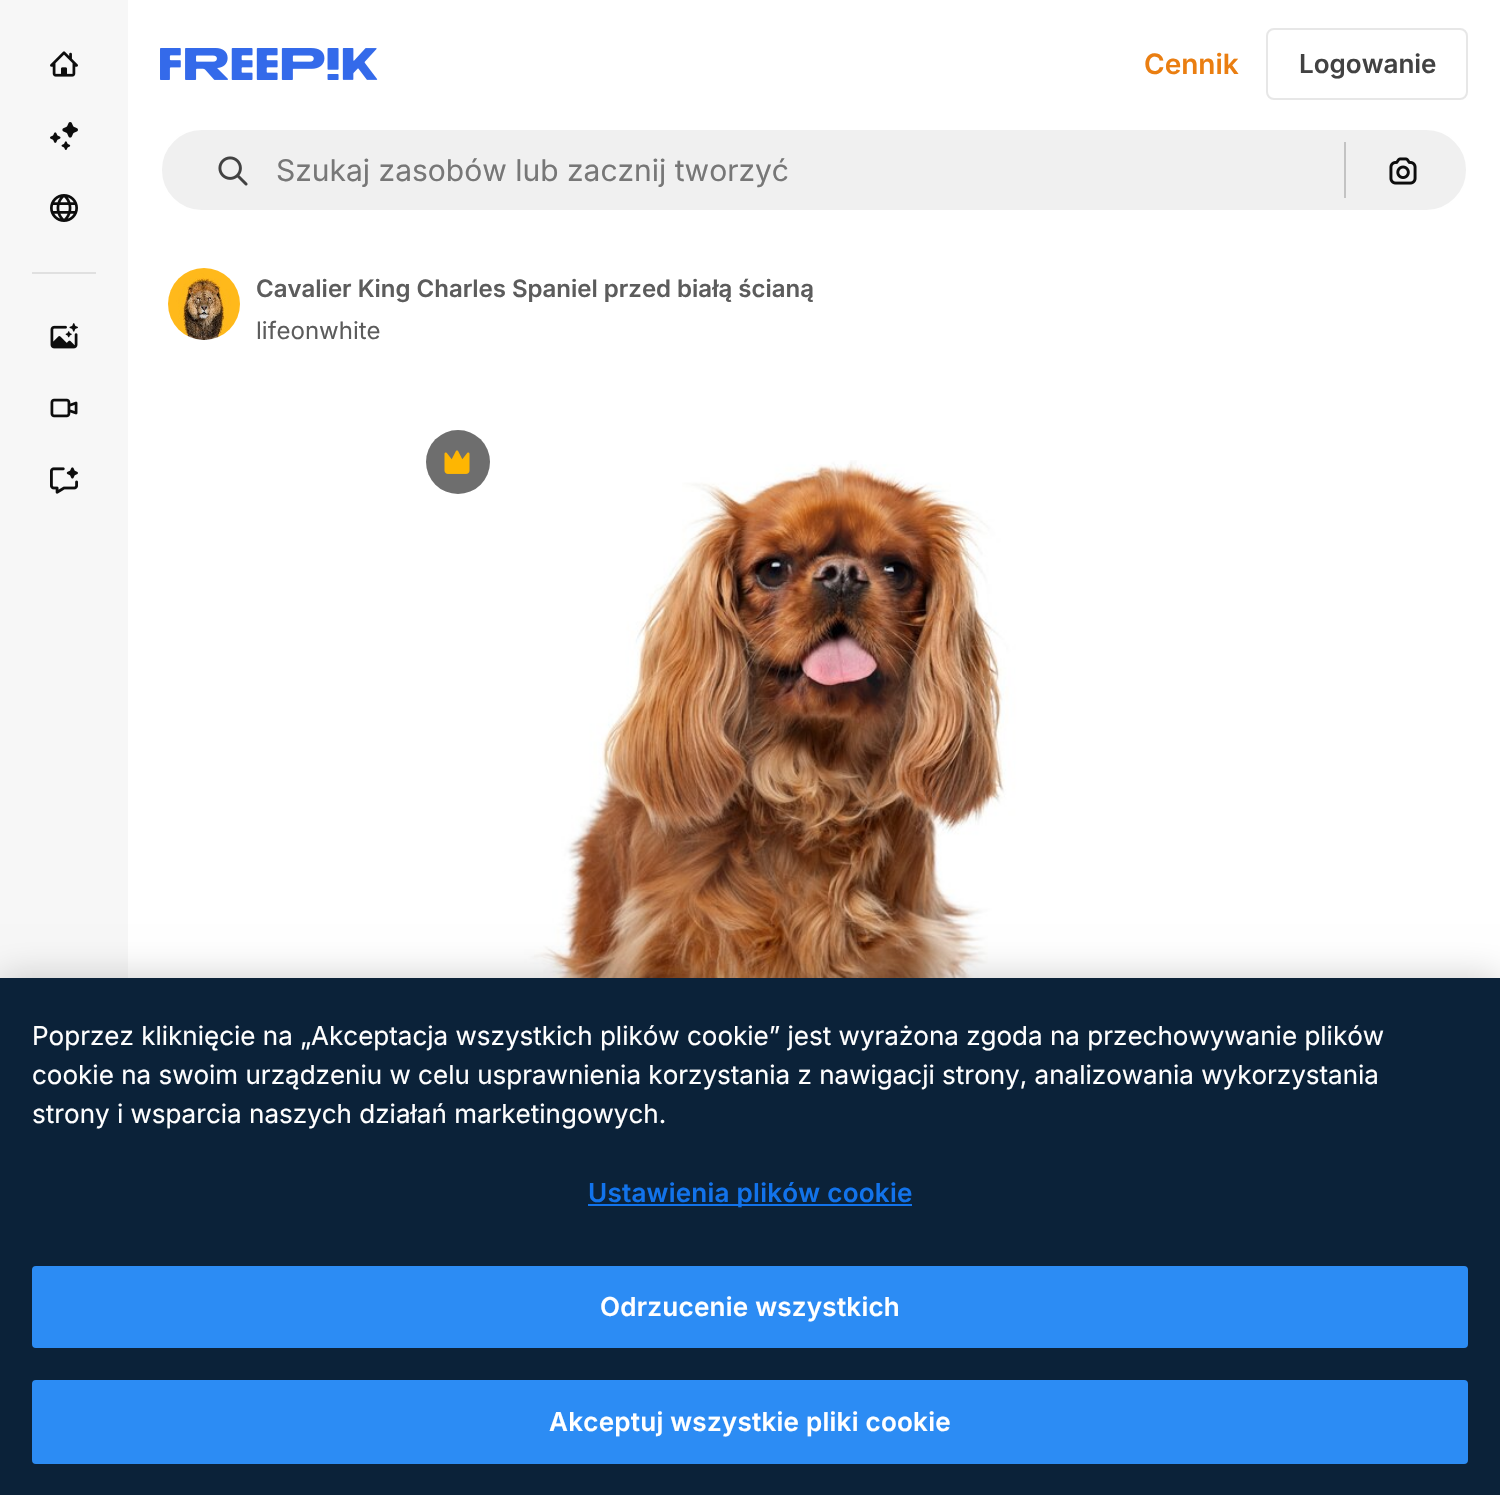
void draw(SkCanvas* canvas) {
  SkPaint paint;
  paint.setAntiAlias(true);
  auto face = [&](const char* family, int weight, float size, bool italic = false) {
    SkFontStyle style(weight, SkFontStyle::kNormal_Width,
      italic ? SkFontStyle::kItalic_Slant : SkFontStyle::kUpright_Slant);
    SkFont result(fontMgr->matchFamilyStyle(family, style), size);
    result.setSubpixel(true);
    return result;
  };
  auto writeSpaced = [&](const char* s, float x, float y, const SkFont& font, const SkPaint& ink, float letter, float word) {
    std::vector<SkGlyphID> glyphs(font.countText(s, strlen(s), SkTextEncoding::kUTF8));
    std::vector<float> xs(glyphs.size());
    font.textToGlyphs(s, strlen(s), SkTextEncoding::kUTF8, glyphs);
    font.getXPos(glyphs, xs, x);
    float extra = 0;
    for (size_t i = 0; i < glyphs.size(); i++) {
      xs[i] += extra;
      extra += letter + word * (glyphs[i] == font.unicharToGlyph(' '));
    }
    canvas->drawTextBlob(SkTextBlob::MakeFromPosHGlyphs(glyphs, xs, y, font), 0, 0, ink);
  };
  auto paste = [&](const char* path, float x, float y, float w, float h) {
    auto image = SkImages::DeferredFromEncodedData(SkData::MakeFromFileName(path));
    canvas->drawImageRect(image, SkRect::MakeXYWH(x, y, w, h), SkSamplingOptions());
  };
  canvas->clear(0xffffffff);
  paint.setColor(0xfff7f7f7);
  canvas->drawRect(SkRect::MakeXYWH(0, 0, 128, 978), paint);
  paste("img/1.png", 50, 51, 28, 26);
  paste("img/2.png", 50, 122, 28, 28);
  paste("img/3.png", 50, 194, 28, 28);
  paint.setColor(0xffe0e0e0);
  canvas->drawRect(SkRect::MakeXYWH(32, 272, 64, 2), paint);
  paste("img/4.png", 50, 323, 28, 26);
  paste("img/5.png", 50, 398, 28, 20);
  paste("img/6.png", 50, 467, 28, 27);
  paste("img/7.png", 160, 48, 218, 32);
  paint.setStroke(true);
  paint.setStrokeWidth(2);
  paint.setColor(0xffe7e7e7);
  canvas->drawRoundRect(SkRect::MakeXYWH(1267, 29, 200, 70), 7, 7, paint);
  paint.setStroke(false);
  paint.setColor(0xfff0f0f0);
  canvas->drawRoundRect(SkRect::MakeXYWH(161, 129, 1306, 82), 41, 41, paint);
  paint.setStroke(true);
  paint.setColor(0xffffffff);
  canvas->drawRoundRect(SkRect::MakeXYWH(161, 129, 1306, 82), 41, 41, paint);
  paste("img/8.png", 218, 156, 30, 30);
  paint.setStroke(false);
  paint.setColor(0xffc3c3c3);
  canvas->drawRect(SkRect::MakeXYWH(1344, 142, 2, 56), paint);
  paste("img/9.png", 1389, 157, 28, 28);
  paste("img/10.png", 168, 268, 72, 72);
  paste("img/12.png", 478, 460, 639, 518);
  paint.setColor(0xff6e6e6e);
  canvas->drawCircle(458, 462, 32, paint);
  paste("img/11.png", 444, 450, 26, 24);
  paint.setColor(0x33000000);
  paint.setMaskFilter(SkMaskFilter::MakeBlur(kNormal_SkBlurStyle, 18));
  canvas->drawRect(SkRect::MakeXYWH(0, 978, 1500, 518), paint);
  paint.setMaskFilter(nullptr);
  paint.setColor(0xff0b2239);
  canvas->drawRect(SkRect::MakeXYWH(0, 978, 1500, 517), paint);
  paint.setColor(0xff1273eb);
  canvas->drawRect(SkRect::MakeXYWH(588, 1204, 324, 2), paint);
  paint.setColor(0xff2c8cf4);
  canvas->drawRoundRect(SkRect::MakeXYWH(33, 1267, 1434, 80), 3, 3, paint);
  paint.setStroke(true);
  canvas->drawRoundRect(SkRect::MakeXYWH(33, 1267, 1434, 80), 3, 3, paint);
  paint.setStroke(false);
  canvas->drawRoundRect(SkRect::MakeXYWH(33, 1381, 1434, 82), 3, 3, paint);
  paint.setStroke(true);
  canvas->drawRoundRect(SkRect::MakeXYWH(33, 1381, 1434, 82), 3, 3, paint);
  auto f0 = face("Inter", 600, 28);
  paint.setStroke(false);
  paint.setColor(0xffea7e11);
  canvas->drawString("Cennik", 1144, 74, f0, paint);
  auto f1 = face("Inter", 600, 26);
  paint.setColor(0xff424242);
  canvas->drawString("Logowanie", 1299, 73, f1, paint);
  auto f2 = face("Inter", 400, 30);
  paint.setColor(0xff777777);
  canvas->drawString("Szukaj zasobów lub zacznij tworzyć", 276, 181, f2, paint);
  auto f3 = face("Inter", 600, 24);
  paint.setColor(0xff5c5c5c);
  canvas->drawString("Cavalier King Charles Spaniel przed białą ścianą", 256, 297, f3, paint);
  auto f4 = face("Inter", 400, 24);
  canvas->drawString("lifeonwhite", 256, 339, f4, paint);
  auto f5 = face("Inter", 400, 26.02f);
  paint.setColor(0xffffffff);
  {
    const struct { const char* s; float x, y; } items[] = {
      {"Poprzez kliknięcie na „Akceptacja wszystkich plików cookie” jest wyrażona zgoda na przechowywanie plików", 32, 1045},
      {"cookie na swoim urządzeniu w celu usprawnienia korzystania z nawigacji strony, analizowania wykorzystania", 32, 1084},
      {"strony i wsparcia naszych działań marketingowych.", 32, 1123},
    };
    for (auto [s, x, y] : items) {
      canvas->drawString(s, x, y, f5, paint);
    }
  }
  auto f6 = face("Inter", 600, 26.02f);
  paint.setColor(0xff1273eb);
  writeSpaced("Ustawienia plików cookie", 588, 1202, f6, paint, 0.25f, 0);
  paint.setColor(0xffffffff);
  writeSpaced("Odrzucenie wszystkich", 600, 1316, f6, paint, 0.25f, 0);
  writeSpaced("Akceptuj wszystkie pliki cookie", 549, 1431, f6, paint, 0.25f, 0);
}
